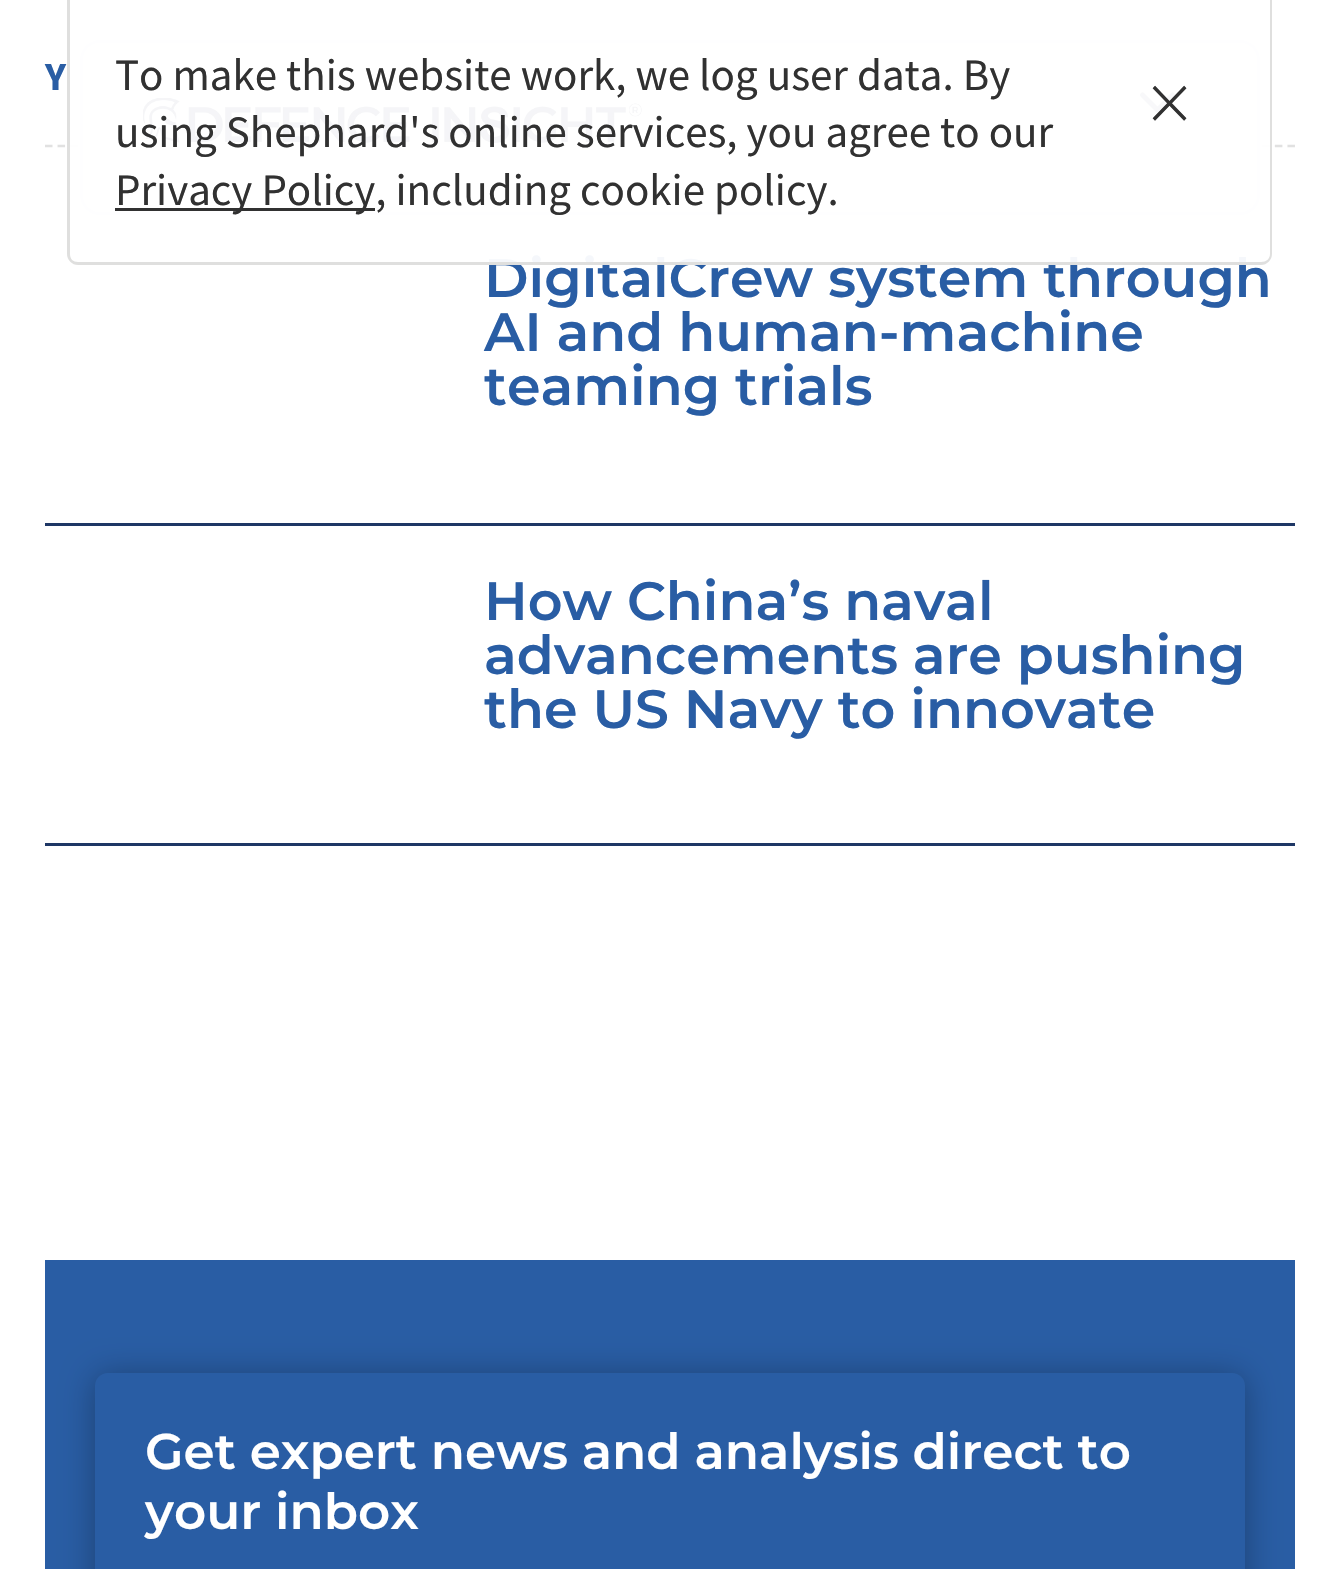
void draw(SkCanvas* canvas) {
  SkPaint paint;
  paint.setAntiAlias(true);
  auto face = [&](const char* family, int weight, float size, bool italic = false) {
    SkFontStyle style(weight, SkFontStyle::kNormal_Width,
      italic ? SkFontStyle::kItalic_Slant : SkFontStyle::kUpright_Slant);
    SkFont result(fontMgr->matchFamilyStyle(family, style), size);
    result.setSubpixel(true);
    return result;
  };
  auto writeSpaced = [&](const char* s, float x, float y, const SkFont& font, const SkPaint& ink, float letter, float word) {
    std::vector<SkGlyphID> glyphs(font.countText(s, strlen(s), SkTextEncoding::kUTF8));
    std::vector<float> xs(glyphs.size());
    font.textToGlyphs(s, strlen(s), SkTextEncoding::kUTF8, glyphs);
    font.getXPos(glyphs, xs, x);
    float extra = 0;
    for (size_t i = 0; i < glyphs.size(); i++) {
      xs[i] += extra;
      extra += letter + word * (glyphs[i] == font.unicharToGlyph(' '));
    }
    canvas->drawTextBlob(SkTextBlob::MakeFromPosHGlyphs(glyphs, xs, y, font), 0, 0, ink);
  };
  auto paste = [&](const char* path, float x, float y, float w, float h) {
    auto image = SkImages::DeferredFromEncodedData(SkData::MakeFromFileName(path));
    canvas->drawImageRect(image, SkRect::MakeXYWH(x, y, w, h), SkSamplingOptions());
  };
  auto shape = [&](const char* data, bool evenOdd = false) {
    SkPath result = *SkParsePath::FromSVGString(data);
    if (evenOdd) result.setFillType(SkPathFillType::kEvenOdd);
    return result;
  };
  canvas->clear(0xffffffff);
  paint.setStroke(true);
  paint.setStrokeWidth(2.5f);
  paint.setColor(0xffe1e1e1);
  paint.setPathEffect(SkDashPathEffect::Make({{7.5f, 5.05f}}, 0));
  canvas->drawPath(shape("M45 146H1295"), paint);
  paint.setPathEffect(nullptr);
  paint.setStroke(false);
  paint.setColor(0x0d000000);
  paint.setMaskFilter(SkMaskFilter::MakeBlur(kNormal_SkBlurStyle, 4));
  canvas->drawRoundRect(SkRect::MakeXYWH(80, 43, 1180, 175), 20, 20, paint);
  paint.setMaskFilter(nullptr);
  paint.setColor(0xffffffff);
  canvas->drawRoundRect(SkRect::MakeXYWH(81.5f, 41.5f, 1177, 172), 18.5f, 18.5f, paint);
  paint.setStroke(true);
  paint.setStrokeWidth(3);
  paint.setColor(0xffe2e8f0);
  canvas->drawRoundRect(SkRect::MakeXYWH(81.5f, 41.5f, 1177, 172), 18.5f, 18.5f, paint);
  paste("img/1.png", 143, 98, 500, 45);
  paint.setStrokeWidth(5);
  paint.setStrokeCap(SkPaint::kRound_Cap);
  paint.setStrokeJoin(SkPaint::kRound_Join);
  paint.setColor(0xff64748b);
  canvas->drawPath(shape("M1142.5 95L1157.5 110L1172.5 95"), paint);
  paint.setStroke(false);
  {
    const struct { float x, y, w, h; SkColor color; } items[] = {
      {45, 523, 1250, 3, 0xff1e3765},
      {45, 843, 1250, 3, 0xff1e3765},
      {45, 1260, 1250, 309, 0xff295da4},
    };
    for (auto [x, y, w, h, color] : items) {
      paint.setColor(color);
      canvas->drawRect(SkRect::MakeXYWH(x, y, w, h), paint);
    }
  }
  paint.setColor(0x4d000000);
  paint.setMaskFilter(SkMaskFilter::MakeBlur(kNormal_SkBlurStyle, 16));
  canvas->drawRoundRect(SkRect::MakeXYWH(95, 1375, 1150, 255), 13, 13, paint);
  paint.setMaskFilter(nullptr);
  paint.setColor(0xff295da4);
  canvas->drawRoundRect(SkRect::MakeXYWH(95, 1373, 1150, 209), 13, 13, paint);
  auto f0 = face("Source Sans Pro", 700, 40);
  writeSpaced("Y", 45, 90, f0, paint, 7, 0);
  auto f1 = face("Montserrat", 600, 54);
  canvas->drawString("DigitalCrew system through", 484, 297, f1, paint);
  paint.setColor(0xf2ffffff);
  canvas->drawPath(shape("M68 0H1273V252C1273 259 1267 265 1260 265H81C74 265 68 259 68 252Z"), paint);
  paint.setColor(0xf2dddddc);
  canvas->drawPath(shape("M67 0H1272V254C1272 260 1267 265 1261 265H78C72 265 67 260 67 254ZM70 0H1270V254C1270 259 1266 262 1261 262H78C73 262 70 259 70 254Z", true), paint);
  auto f2 = face("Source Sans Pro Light", 300, 90);
  paint.setColor(0xff313131);
  canvas->drawString("×", 1148, 133, f2, paint);
  canvas->drawRect(SkRect::MakeXYWH(115, 208, 260, 3), paint);
  auto f3 = face("Source Sans Pro", 400, 45);
  {
    const struct { const char* s; float x, y; } items[] = {
      {"Privacy Policy, including cookie policy.", 115, 205},
      {"using Shephard's online services, you agree to our", 115, 147},
      {"To make this website work, we log user data. By", 115, 90},
    };
    for (auto [s, x, y] : items) {
      canvas->drawString(s, x, y, f3, paint);
    }
  }
  paint.setColor(0xff295da4);
  {
    const struct { const char* s; float x, y; } items[] = {
      {"AI and human-machine", 484, 351},
      {"teaming trials", 484, 405},
      {"How China’s naval", 484, 620},
      {"advancements are pushing", 484, 674},
      {"the US Navy to innovate", 484, 728},
    };
    for (auto [s, x, y] : items) {
      canvas->drawString(s, x, y, f1, paint);
    }
  }
  auto f4 = face("Montserrat", 600, 50);
  paint.setColor(0xffffffff);
  canvas->drawString("Get expert news and analysis direct to", 145, 1469, f4, paint);
  canvas->drawString("your inbox", 145, 1529, f4, paint);
}
